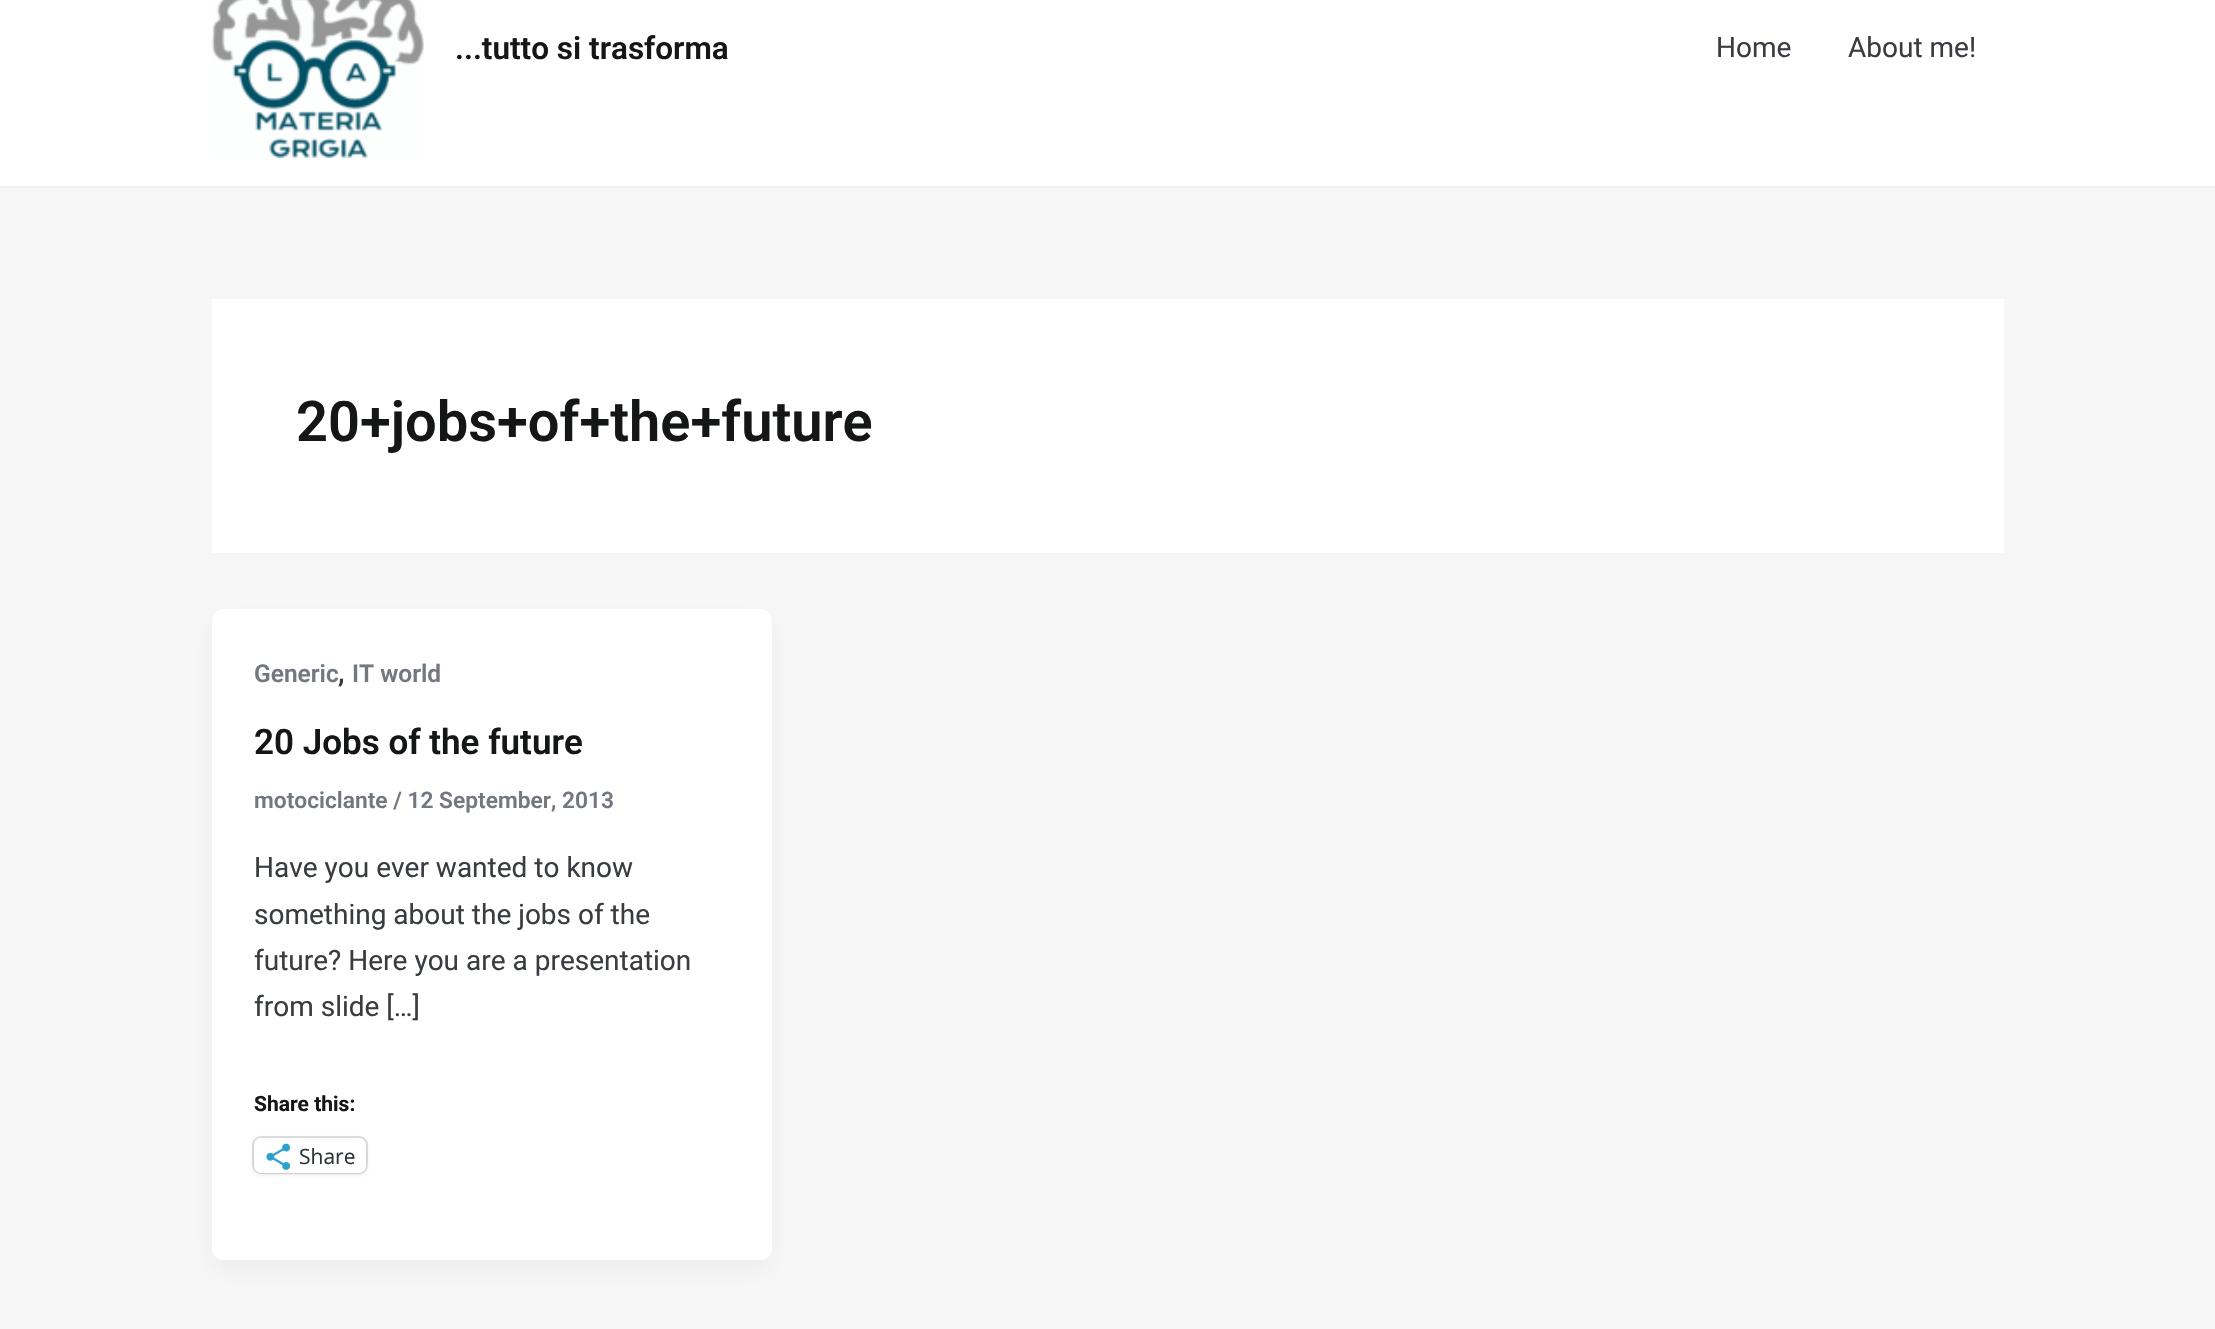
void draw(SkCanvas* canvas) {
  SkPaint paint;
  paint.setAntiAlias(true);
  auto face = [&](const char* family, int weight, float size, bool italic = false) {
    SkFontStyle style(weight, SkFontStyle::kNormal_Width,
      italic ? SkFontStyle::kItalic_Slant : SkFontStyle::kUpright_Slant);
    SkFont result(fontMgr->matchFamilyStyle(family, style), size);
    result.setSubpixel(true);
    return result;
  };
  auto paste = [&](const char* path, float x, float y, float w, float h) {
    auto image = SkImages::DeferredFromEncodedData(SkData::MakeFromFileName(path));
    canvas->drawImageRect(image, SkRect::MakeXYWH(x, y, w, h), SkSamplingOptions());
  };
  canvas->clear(0xfff6f6f6);
  paint.setColor(0xffffffff);
  canvas->drawRect(SkRect::MakeXYWH(0, 0, 2215, 186), paint);
  paint.setColor(0xfff1f0f0);
  canvas->drawRect(SkRect::MakeXYWH(0, 186, 2215, 2), paint);
  paste("img/1.png", 211, 0, 213, 158);
  paint.setColor(0xffffffff);
  canvas->drawRect(SkRect::MakeXYWH(212, 299, 1792, 254), paint);
  paint.setColor(0x0d101828);
  paint.setMaskFilter(SkMaskFilter::MakeBlur(kNormal_SkBlurStyle, 13));
  canvas->drawRoundRect(SkRect::MakeXYWH(215, 623, 553, 644), 7, 7, paint);
  paint.setMaskFilter(nullptr);
  paint.setColor(0xffffffff);
  canvas->drawRoundRect(SkRect::MakeXYWH(212, 609, 560, 651), 11, 11, paint);
  paint.setStroke(true);
  paint.setStrokeWidth(2);
  paint.setColor(0xffe0e0e0);
  canvas->drawRoundRect(SkRect::MakeXYWH(253, 1137, 114, 36), 8, 8, paint);
  paint.setStroke(false);
  paint.setColor(0x1f000000);
  paint.setMaskFilter(SkMaskFilter::MakeBlur(kNormal_SkBlurStyle, 2));
  canvas->drawRoundRect(SkRect::MakeXYWH(254, 1139, 112, 35), 7, 7, paint);
  paint.setMaskFilter(nullptr);
  paint.setColor(0xffffffff);
  canvas->drawRoundRect(SkRect::MakeXYWH(254, 1138, 112, 35), 7, 7, paint);
  paste("img/2.png", 266, 1143, 25, 27);
  auto f0 = face("Roboto", 600, 31.5f);
  paint.setColor(0xff151616);
  canvas->drawString("...tutto si trasforma", 455, 59, f0, paint);
  auto f1 = face("Roboto", 400, 28);
  paint.setColor(0xff393c40);
  canvas->drawString("Home", 1716, 57, f1, paint);
  canvas->drawString("About me!", 1848, 57, f1, paint);
  auto f2 = face("Roboto", 600, 56);
  paint.setColor(0xff151616);
  canvas->drawString("20+jobs+of+the+future", 296, 441, f2, paint);
  auto f3 = face("Roboto", 600, 24.5f);
  paint.setColor(0xff737880);
  canvas->drawString("Generic", 254, 682, f3, paint);
  auto f4 = face("Roboto", 600, 28);
  paint.setColor(0xff393c40);
  canvas->drawString(",", 338, 682, f4, paint);
  paint.setColor(0xff737880);
  canvas->drawString("IT world", 352, 682, f3, paint);
  auto f5 = face("Roboto", 600, 35);
  paint.setColor(0xff151616);
  canvas->drawString("20 Jobs of the future", 254, 754, f5, paint);
  auto f6 = face("Roboto", 600, 22.75f);
  paint.setColor(0xff737880);
  canvas->drawString("motociclante / 12 September, 2013", 254, 808, f6, paint);
  paint.setColor(0xff393c40);
  {
    const struct { const char* s; float x, y; } items[] = {
      {"Have you ever wanted to know", 254, 877},
      {"something about the jobs of the", 254, 924},
      {"future? Here you are a presentation", 254, 970},
      {"from slide […]", 254, 1016},
    };
    for (auto [s, x, y] : items) {
      canvas->drawString(s, x, y, f1, paint);
    }
  }
  auto f7 = face("Roboto", 700, 21);
  paint.setColor(0xff151616);
  canvas->drawString("Share this:", 254, 1111, f7, paint);
  auto f8 = face("Open Sans", 400, 21);
  paint.setColor(0xff2c3338);
  canvas->drawString("Share", 299, 1164, f8, paint);
}
